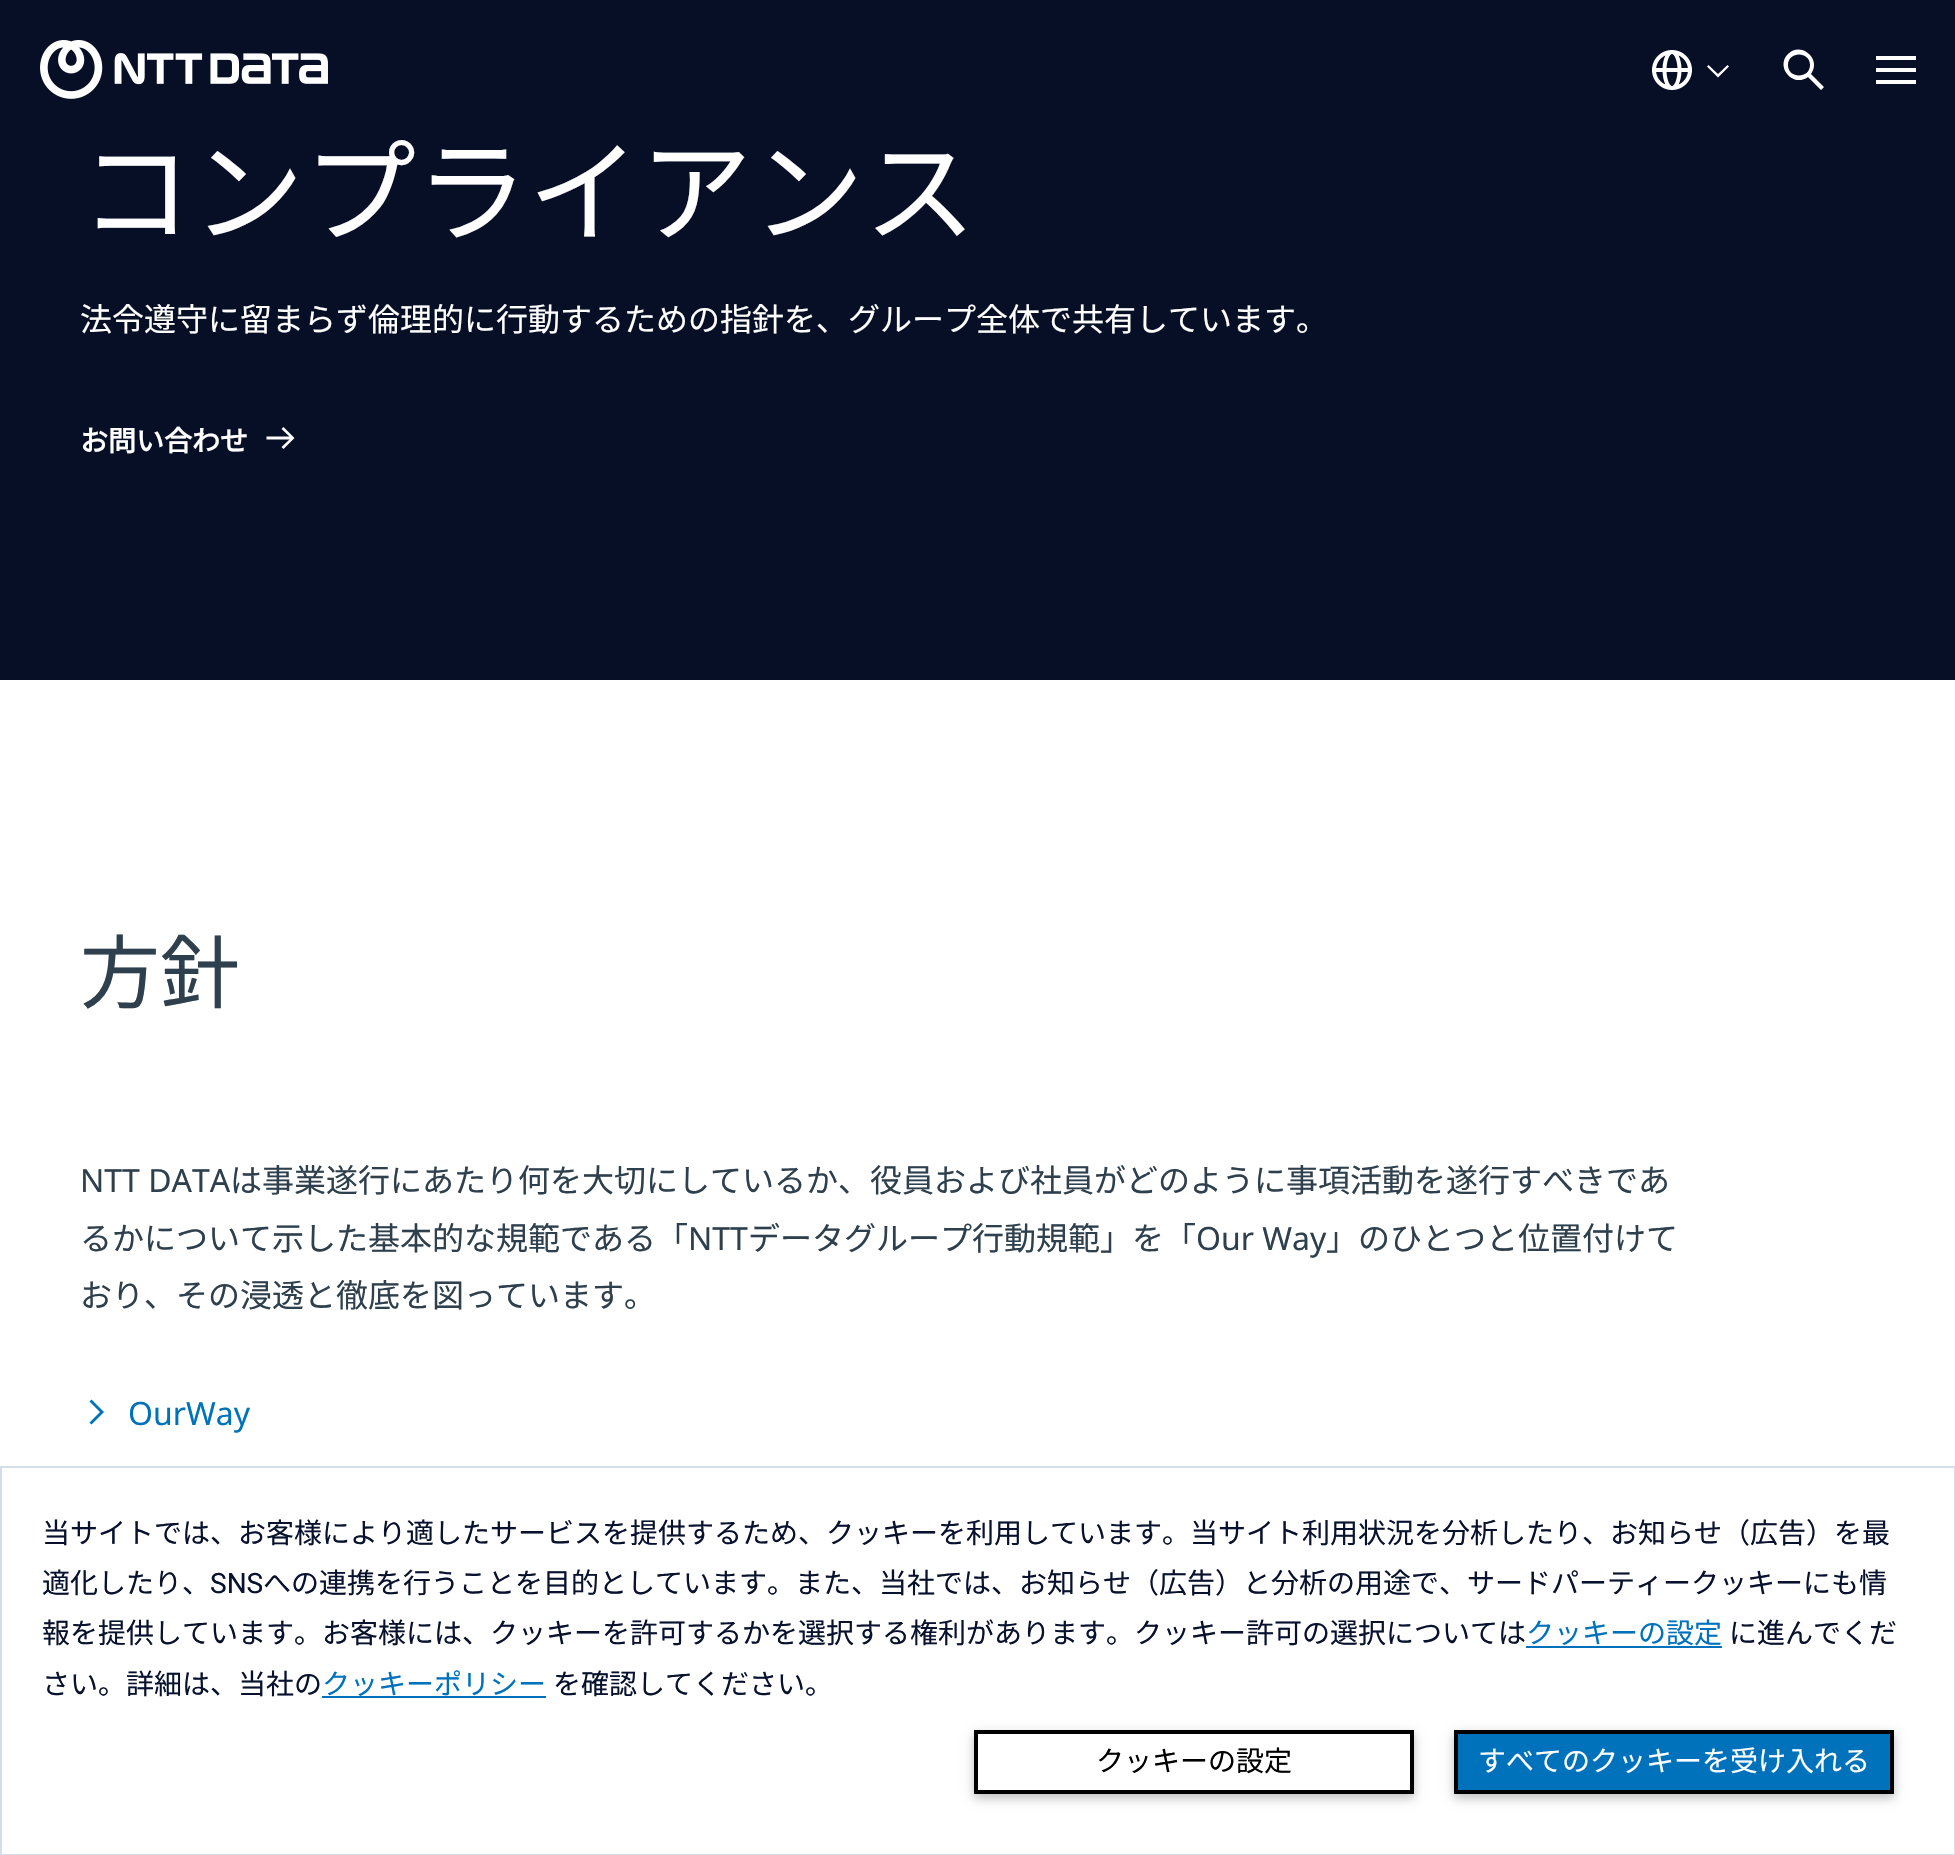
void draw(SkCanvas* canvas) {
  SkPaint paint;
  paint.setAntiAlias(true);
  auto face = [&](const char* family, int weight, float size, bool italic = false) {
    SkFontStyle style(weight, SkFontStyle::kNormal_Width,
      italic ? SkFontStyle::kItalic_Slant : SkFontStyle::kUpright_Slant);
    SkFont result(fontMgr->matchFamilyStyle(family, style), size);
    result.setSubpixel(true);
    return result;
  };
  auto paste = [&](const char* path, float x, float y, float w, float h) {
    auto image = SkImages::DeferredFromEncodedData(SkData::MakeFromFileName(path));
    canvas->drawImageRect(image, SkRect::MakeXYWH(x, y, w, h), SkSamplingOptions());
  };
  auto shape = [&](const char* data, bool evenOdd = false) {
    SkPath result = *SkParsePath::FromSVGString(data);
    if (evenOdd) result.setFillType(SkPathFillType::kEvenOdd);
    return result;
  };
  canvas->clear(0xff070f26);
  paste("img/1.png", 40, 40, 288, 59);
  paste("img/2.png", 1652, 50, 40, 40);
  paint.setColor(0xffffffff);
  canvas->drawPath(shape("M1727.5 65L1718 74L1708.5 65L1707 66.5L1718 77.5L1729 66.5Z"), paint);
  canvas->drawPath(shape("M1824 87L1811 74C1822 59 1801 41 1788 54C1775 67 1793 88 1808 77L1821 90ZM1788 65C1788 51 1810 51 1810 65C1810 79 1788 79 1788 65Z"), paint);
  {
    const struct { float x, y, w, h; SkColor color; } items[] = {
      {1876, 68, 40, 4, 0xffffffff},
      {1876, 56, 40, 4, 0xffffffff},
      {1876, 80, 40, 4, 0xffffffff},
    };
    for (auto [x, y, w, h, color] : items) {
      paint.setColor(color);
      canvas->drawRect(SkRect::MakeXYWH(x, y, w, h), paint);
    }
  }
  canvas->drawPath(shape("M283.5 427L281.5 429L289.5 436.5H266.5V439.5H289.5L281.5 447L283.5 449L294.5 438Z"), paint);
  canvas->drawRect(SkRect::MakeXYWH(0, 680, 1955, 786), paint);
  paint.setColor(0xff0072bc);
  canvas->drawPath(shape("M102 1410L91.5 1399.5L89.5 1401.5L100 1412L89.5 1422.5L91.5 1424.5L104 1412Z"), paint);
  paint.setColor(0xffffffff);
  canvas->drawRect(SkRect::MakeXYWH(1, 1467, 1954, 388), paint);
  paint.setStroke(true);
  paint.setStrokeWidth(2);
  paint.setColor(0xffd5ddeb);
  canvas->drawRect(SkRect::MakeXYWH(1, 1467, 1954, 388), paint);
  paint.setStroke(false);
  paint.setColor(0xff0072bc);
  canvas->drawRect(SkRect::MakeXYWH(1526, 1646, 196, 2), paint);
  canvas->drawRect(SkRect::MakeXYWH(322, 1696, 224, 2), paint);
  canvas->save();
  canvas->clipPath(shape("M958 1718H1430V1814H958ZM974 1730H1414V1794H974Z", true), true);
  paint.setColor(0x42000000);
  paint.setMaskFilter(SkMaskFilter::MakeBlur(kNormal_SkBlurStyle, 5));
  canvas->drawRect(SkRect::MakeXYWH(974, 1734, 440, 64), paint);
  paint.setMaskFilter(nullptr);
  canvas->restore();
  paint.setStroke(true);
  paint.setStrokeWidth(4);
  paint.setColor(0xff000000);
  canvas->drawRect(SkRect::MakeXYWH(976, 1732, 436, 60), paint);
  paint.setStroke(false);
  paint.setColor(0x42000000);
  paint.setMaskFilter(SkMaskFilter::MakeBlur(kNormal_SkBlurStyle, 5));
  canvas->drawRect(SkRect::MakeXYWH(1454, 1734, 440, 64), paint);
  paint.setMaskFilter(nullptr);
  paint.setColor(0xff0072bc);
  canvas->drawRect(SkRect::MakeXYWH(1456, 1732, 436, 60), paint);
  paint.setStroke(true);
  paint.setColor(0xff000000);
  canvas->drawRect(SkRect::MakeXYWH(1456, 1732, 436, 60), paint);
  auto f0 = face("Noto Sans JP", 100, 112);
  paint.setStroke(false);
  paint.setColor(0xffffffff);
  canvas->drawString("コンプライアンス", 80, 233, f0, paint);
  paint.setColor(0xff070f26);
  canvas->drawRect(SkRect::MakeXYWH(401, 139, 1, 1), paint);
  auto f1 = face("Noto Sans JP", 100, 32);
  paint.setColor(0xffffffff);
  canvas->drawString("法令遵守に留まらず倫理的に行動するための指針を、グループ全体で共有しています。", 80, 331, f1, paint);
  auto f2 = face("Noto Sans JP", 700, 28);
  canvas->drawString("お問い合わせ", 80, 451, f2, paint);
  auto f3 = face("Noto Sans JP", 100, 80);
  paint.setColor(0xff2e404d);
  canvas->drawString("方針", 80, 1002, f3, paint);
  auto f4 = face("Noto Sans", 400, 32);
  canvas->drawString("NTT DATA", 80, 1192, f4, paint);
  canvas->drawString("は事業遂行にあたり何を大切にしているか、役員および社員がどのように事項活動を遂行すべきであ", 230, 1192, f1, paint);
  canvas->drawString("るかについて示した基本的な規範である「", 80, 1250, f1, paint);
  canvas->drawString("NTT", 688, 1250, f4, paint);
  canvas->drawString("データグループ行動規範」を「", 748, 1250, f1, paint);
  canvas->drawString("Our Way", 1196, 1250, f4, paint);
  canvas->drawString("」のひとつと位置付けて", 1326, 1250, f1, paint);
  canvas->drawString("おり、その浸透と徹底を図っています。", 80, 1307, f1, paint);
  paint.setColor(0xff0072bc);
  canvas->drawString("OurWay", 128, 1425, f4, paint);
  auto f5 = face("Noto Sans JP", 100, 28);
  paint.setColor(0xff08122e);
  canvas->drawString("当サイトでは、お客様により適したサービスを提供するため、クッキーを利用しています。当サイト利用状況を分析したり、お知らせ（広告）を最", 42, 1543, f5, paint);
  canvas->drawString("適化したり、", 42, 1593, f5, paint);
  auto f6 = face("Roboto", 400, 28);
  canvas->drawString("SNS", 210, 1593, f6, paint);
  canvas->drawString("への連携を行うことを目的としています。また、当社では、お知らせ（広告）と分析の用途で、サードパーティークッキーにも情", 263, 1593, f5, paint);
  canvas->drawString("報を提供しています。お客様には、クッキーを許可するかを選択する権利があります。クッキー許可の選択については", 42, 1643, f5, paint);
  paint.setColor(0xff0072bc);
  canvas->drawString("クッキーの設定", 1526, 1643, f5, paint);
  paint.setColor(0xff08122e);
  canvas->drawString("に進んでくだ", 1729, 1643, f5, paint);
  canvas->drawString("さい。詳細は、当社の", 42, 1694, f5, paint);
  paint.setColor(0xff0072bc);
  canvas->drawString("クッキーポリシー", 322, 1694, f5, paint);
  paint.setColor(0xff08122e);
  canvas->drawString("を確認してください。", 553, 1694, f5, paint);
  paint.setColor(0xff000000);
  canvas->drawString("クッキーの設定", 1096, 1771, f5, paint);
  paint.setColor(0xffffffff);
  canvas->drawString("すべてのクッキーを受け入れる", 1478, 1771, f5, paint);
}
